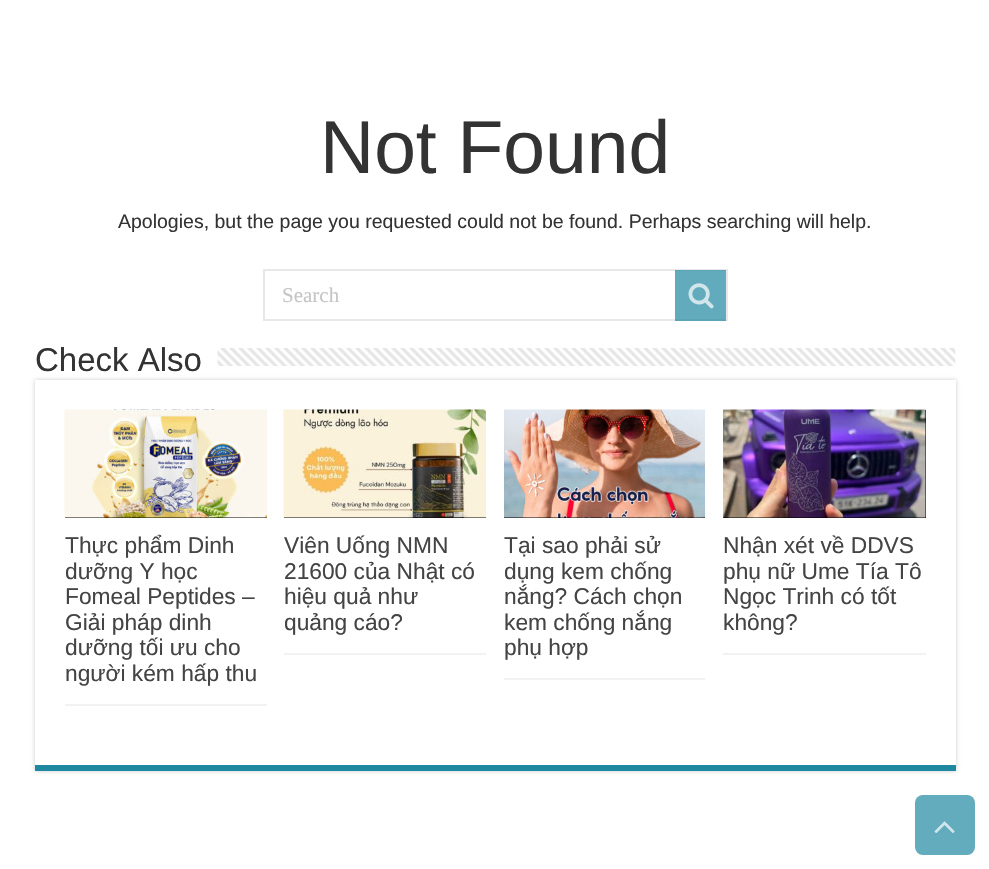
void draw(SkCanvas* canvas) {
  SkPaint paint;
  paint.setAntiAlias(true);
  auto face = [&](const char* family, int weight, float size, bool italic = false) {
    SkFontStyle style(weight, SkFontStyle::kNormal_Width,
      italic ? SkFontStyle::kItalic_Slant : SkFontStyle::kUpright_Slant);
    SkFont result(fontMgr->matchFamilyStyle(family, style), size);
    result.setSubpixel(true);
    return result;
  };
  auto paste = [&](const char* path, float x, float y, float w, float h) {
    auto image = SkImages::DeferredFromEncodedData(SkData::MakeFromFileName(path));
    canvas->drawImageRect(image, SkRect::MakeXYWH(x, y, w, h), SkSamplingOptions());
  };
  canvas->clear(0xffffffff);
  paint.setStroke(true);
  paint.setStrokeWidth(2);
  paint.setColor(0xffe8e8e8);
  canvas->drawRect(SkRect::MakeXYWH(264, 270, 463, 50), paint);
  paint.setStroke(false);
  paint.setColor(0xb31e88a0);
  canvas->drawRect(SkRect::MakeXYWH(675, 270, 51, 51), paint);
  paste("img/1.png", 688, 283, 26, 26);
  paste("img/2.png", 217, 348, 739, 18);
  paint.setColor(0xffcacaca);
  paint.setMaskFilter(SkMaskFilter::MakeBlur(kNormal_SkBlurStyle, 2));
  canvas->drawRect(SkRect::MakeXYWH(35, 380, 921, 391), paint);
  paint.setMaskFilter(nullptr);
  {
    const struct { float x, y, w, h; SkColor color; } items[] = {
      {35, 380, 921, 385, 0xffffffff},
      {35, 765, 921, 6, 0xff1e88a0},
      {65, 517, 202, 1, 0xff000000},
    };
    for (auto [x, y, w, h, color] : items) {
      paint.setColor(color);
      canvas->drawRect(SkRect::MakeXYWH(x, y, w, h), paint);
    }
  }
  paste("img/3.png", 64, 409, 203, 109);
  paint.setColor(0xfff2f2f2);
  canvas->drawRect(SkRect::MakeXYWH(65, 704, 202, 2), paint);
  paint.setColor(0xff000000);
  canvas->drawRect(SkRect::MakeXYWH(284, 517, 202, 1), paint);
  paste("img/4.png", 283, 409, 203, 109);
  paint.setColor(0xfff2f2f2);
  canvas->drawRect(SkRect::MakeXYWH(284, 653, 202, 2), paint);
  paint.setColor(0xff000000);
  canvas->drawRect(SkRect::MakeXYWH(504, 517, 201, 1), paint);
  paste("img/5.png", 504, 409, 201, 109);
  paint.setColor(0xfff2f2f2);
  canvas->drawRect(SkRect::MakeXYWH(504, 678, 201, 2), paint);
  paint.setColor(0xff000000);
  canvas->drawRect(SkRect::MakeXYWH(723, 410, 203, 108), paint);
  paste("img/6.png", 723, 409, 203, 109);
  paint.setColor(0xfff2f2f2);
  canvas->drawRect(SkRect::MakeXYWH(723, 653, 203, 2), paint);
  paint.setColor(0xff62acbd);
  canvas->drawRoundRect(SkRect::MakeXYWH(915, 795, 60, 60), 8, 8, paint);
  paste("img/7.png", 934, 821, 21, 12);
  auto f0 = face("Liberation Sans", 400, 75);
  paint.setColor(0xff333333);
  canvas->drawString("Not Found", 320, 173, f0, paint);
  auto f1 = face("Liberation Sans", 400, 19.5f);
  canvas->drawString("Apologies, but the page you requested could not be found. Perhaps searching will help.", 118, 228, f1, paint);
  auto f2 = face("Liberation Serif", 400, 21);
  paint.setColor(0xffc5c5c5);
  canvas->drawString("Search", 282, 302, f2, paint);
  auto f3 = face("Liberation Sans", 400, 33);
  paint.setColor(0xff333333);
  canvas->drawString("Check Also", 35, 371, f3, paint);
  auto f4 = face("Liberation Sans", 400, 22.75f);
  paint.setColor(0xff444444);
  {
    const struct { const char* s; float x, y; } items[] = {
      {"Thực phẩm Dinh", 65, 553},
      {"dưỡng Y học", 65, 579},
      {"Fomeal Peptides –", 65, 604},
      {"Giải pháp dinh", 65, 630},
      {"dưỡng tối ưu cho", 65, 655},
      {"người kém hấp thu", 65, 681},
      {"Viên Uống NMN", 284, 553},
      {"21600 của Nhật có", 284, 579},
      {"hiệu quả như", 284, 604},
      {"quảng cáo?", 284, 630},
      {"Tại sao phải sử", 504, 553},
      {"dụng kem chống", 504, 579},
      {"nắng? Cách chọn", 504, 604},
      {"kem chống nắng", 504, 630},
      {"phụ hợp", 504, 655},
      {"Nhận xét về DDVS", 723, 553},
      {"phụ nữ Ume Tía Tô", 723, 579},
      {"Ngọc Trinh có tốt", 723, 604},
      {"không?", 723, 630},
    };
    for (auto [s, x, y] : items) {
      canvas->drawString(s, x, y, f4, paint);
    }
  }
}
